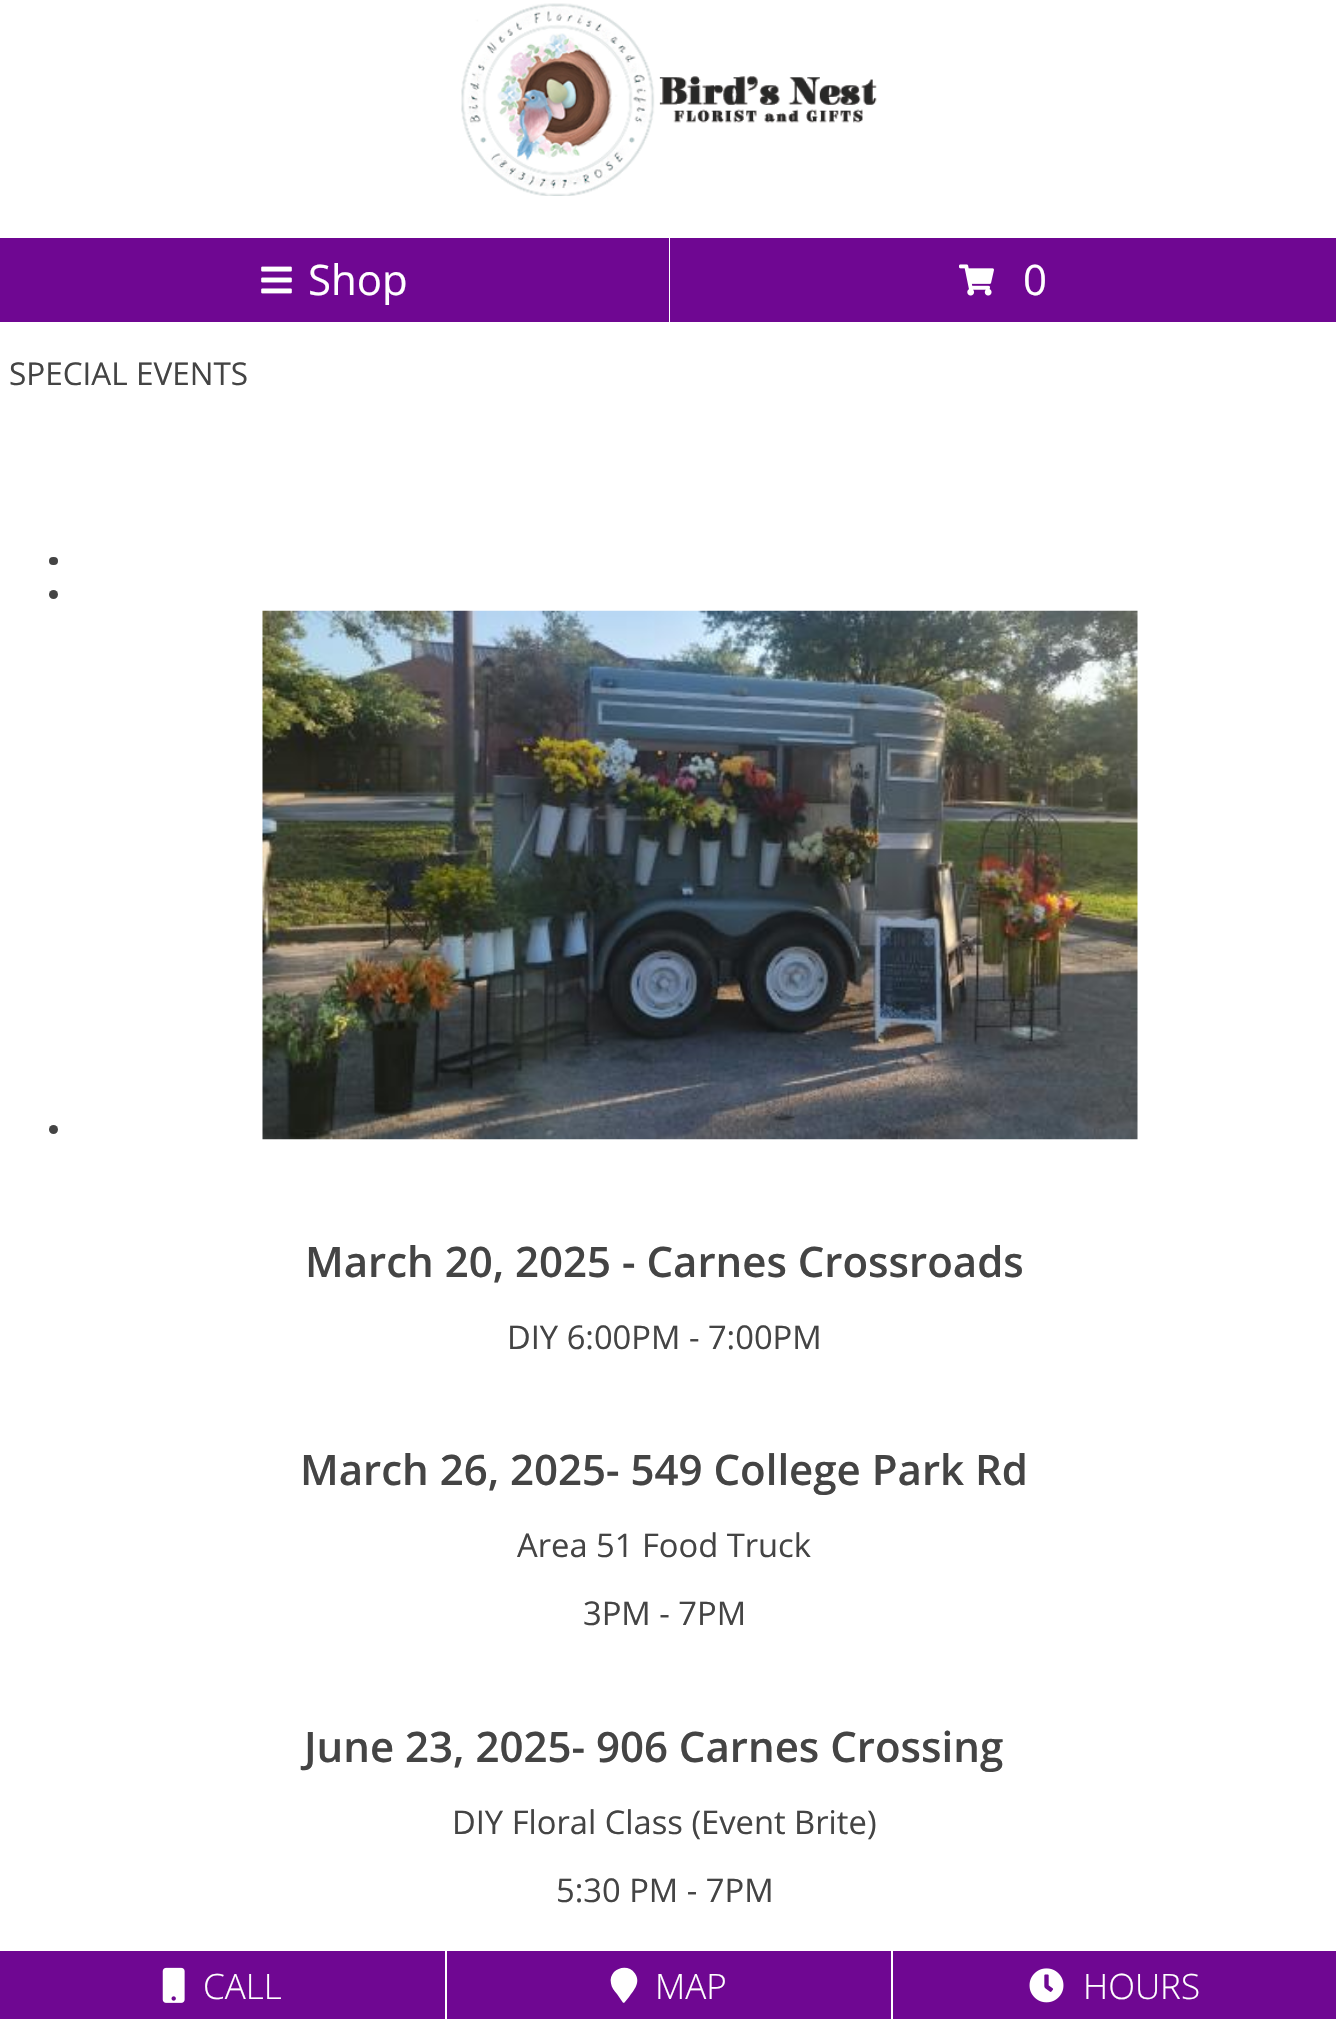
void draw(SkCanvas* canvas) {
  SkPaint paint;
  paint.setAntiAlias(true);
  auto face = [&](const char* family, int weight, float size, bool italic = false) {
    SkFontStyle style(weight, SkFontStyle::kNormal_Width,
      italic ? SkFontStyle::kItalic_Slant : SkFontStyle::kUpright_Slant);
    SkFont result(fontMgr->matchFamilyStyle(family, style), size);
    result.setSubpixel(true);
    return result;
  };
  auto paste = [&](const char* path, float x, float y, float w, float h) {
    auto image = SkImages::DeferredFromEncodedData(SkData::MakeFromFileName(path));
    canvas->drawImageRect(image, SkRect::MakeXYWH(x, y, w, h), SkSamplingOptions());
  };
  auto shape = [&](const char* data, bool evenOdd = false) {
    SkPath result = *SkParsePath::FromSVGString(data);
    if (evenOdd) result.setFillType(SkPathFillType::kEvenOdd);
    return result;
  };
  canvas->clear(0xffffffff);
  paste("img/1.png", 461, 3, 416, 193);
  paint.setColor(0xff6f0792);
  canvas->drawRect(SkRect::MakeXYWH(0, 238, 669, 84), paint);
  paste("img/2.png", 261, 266, 31, 28);
  canvas->drawRect(SkRect::MakeXYWH(670, 238, 666, 84), paint);
  paste("img/3.png", 959, 264, 35, 32);
  paint.setColor(0xff444444);
  canvas->drawRoundRect(SkRect::MakeXYWH(49, 557, 9, 8), 4, 4, paint);
  canvas->drawCircle(53.5f, 594.5f, 4.5f, paint);
  canvas->drawCircle(53.5f, 1129.5f, 4.5f, paint);
  paste("img/4.png", 262, 610, 876, 530);
  paint.setColor(0xff6f0792);
  canvas->drawRect(SkRect::MakeXYWH(0, 1951, 445, 68), paint);
  paste("img/5.png", 162, 1967, 23, 36);
  canvas->drawRect(SkRect::MakeXYWH(447, 1951, 444, 68), paint);
  paint.setColor(0xffffffff);
  canvas->drawPath(shape("M622.5 2002L617 1994C614.5 1991 611.5 1987.5 611 1983.5C608 1969.5 627 1962 635 1973.5C641 1982.5 634 1990 629 1997L624.5 2002.5C624 2003 623 2003 622.5 2002Z"), paint);
  paint.setColor(0xff6f0792);
  canvas->drawRect(SkRect::MakeXYWH(893, 1951, 443, 68), paint);
  paste("img/6.png", 1029, 1968, 35, 35);
  auto f0 = face("Open Sans", 400, 42);
  paint.setColor(0xffffffff);
  canvas->drawString("Shop", 308, 295, f0, paint);
  canvas->drawString("0", 1023, 295, f0, paint);
  auto f1 = face("Open Sans", 400, 31.5f);
  paint.setColor(0xff444444);
  canvas->drawString("SPECIAL EVENTS", 9, 385, f1, paint);
  auto f2 = face("Open Sans", 600, 42);
  canvas->drawString("March 20, 2025 - Carnes Crossroads", 305, 1277, f2, paint);
  auto f3 = face("Open Sans", 400, 32.7f);
  canvas->drawString("DIY 6:00PM - 7:00PM", 507, 1349, f3, paint);
  canvas->drawString("March 26, 2025- 549 College Park Rd", 300, 1485, f2, paint);
  canvas->drawString("Area 51 Food Truck", 517, 1557, f3, paint);
  canvas->drawString("3PM - 7PM", 583, 1625, f3, paint);
  canvas->drawString("June 23, 2025- 906 Carnes Crossing", 304, 1762, f2, paint);
  canvas->drawString("DIY Floral Class (Event Brite)", 452, 1834, f3, paint);
  canvas->drawString("5:30 PM - 7PM", 556, 1902, f3, paint);
  auto f4 = face("Open Sans", 300, 35);
  paint.setColor(0xffffffff);
  {
    const struct { const char* s; float x, y; } items[] = {
      {"CALL", 203, 1999},
      {"MAP", 655, 1999},
      {"HOURS", 1083, 1999},
    };
    for (auto [s, x, y] : items) {
      canvas->drawString(s, x, y, f4, paint);
    }
  }
}
